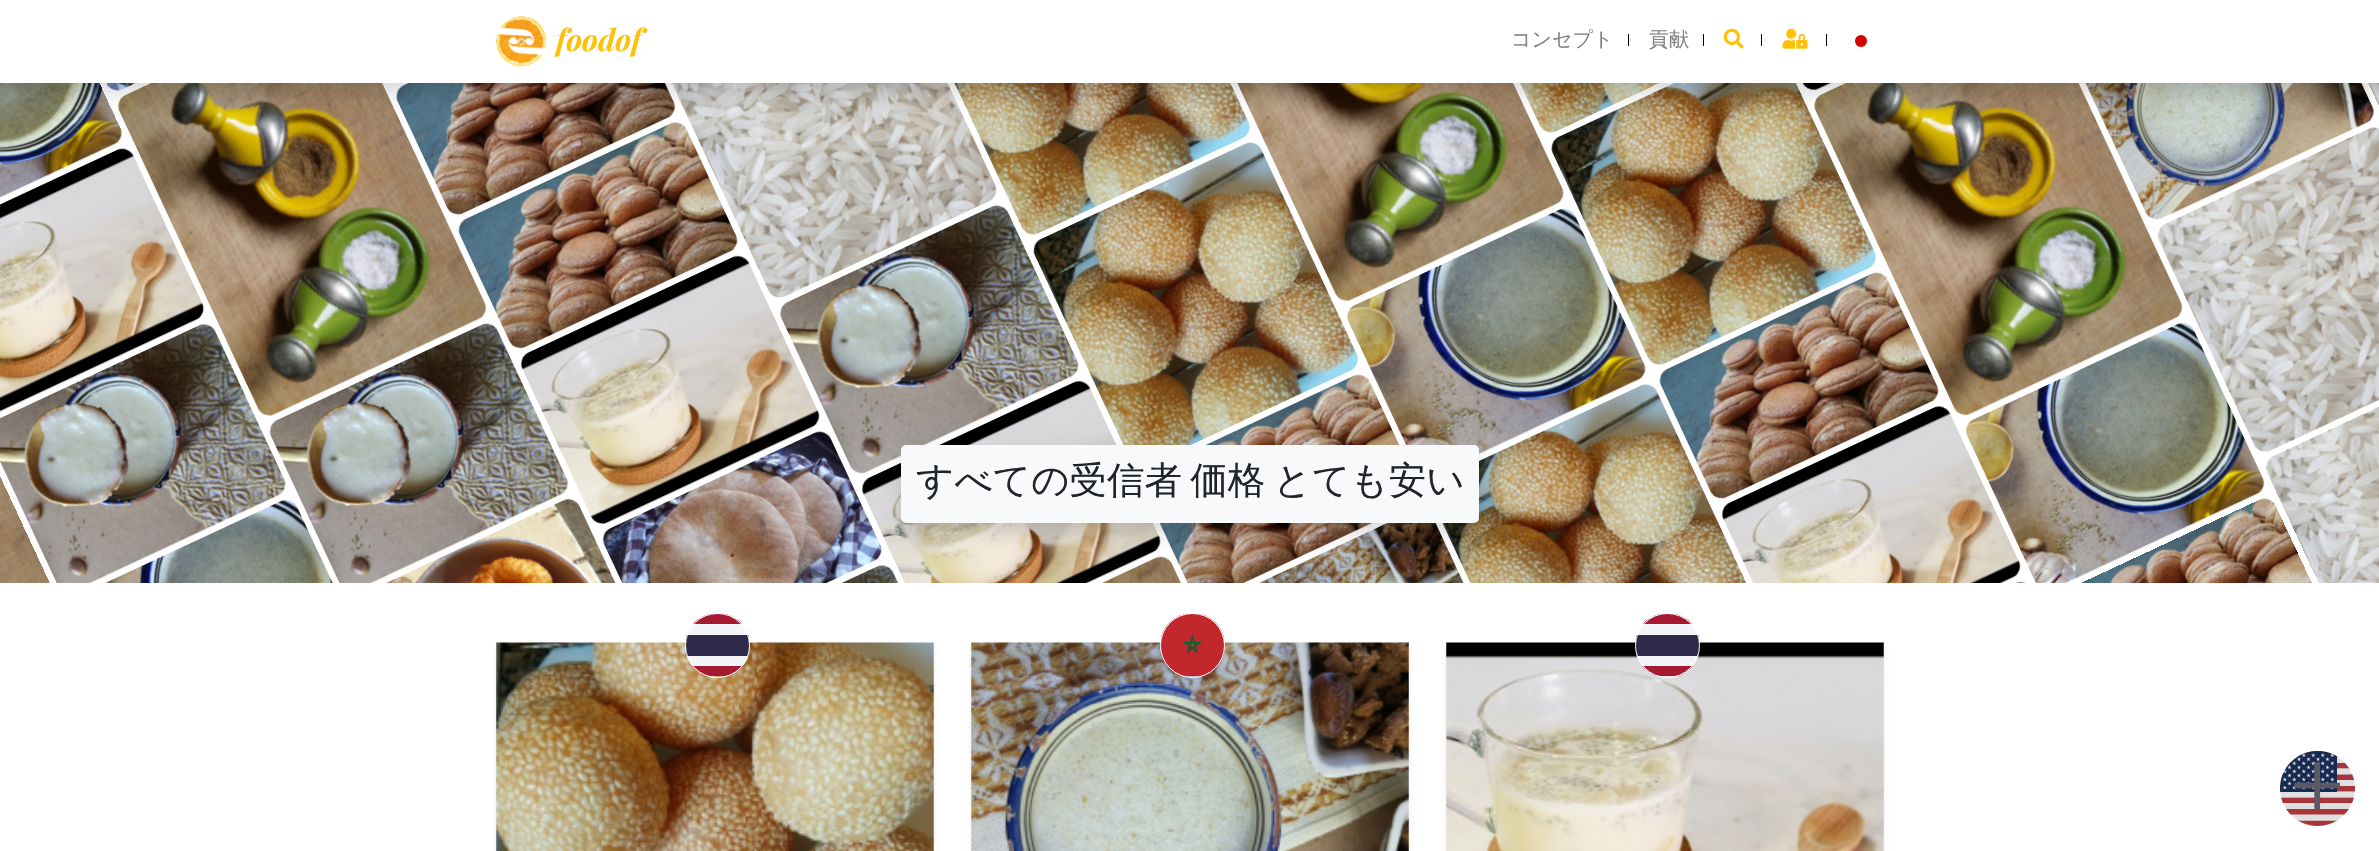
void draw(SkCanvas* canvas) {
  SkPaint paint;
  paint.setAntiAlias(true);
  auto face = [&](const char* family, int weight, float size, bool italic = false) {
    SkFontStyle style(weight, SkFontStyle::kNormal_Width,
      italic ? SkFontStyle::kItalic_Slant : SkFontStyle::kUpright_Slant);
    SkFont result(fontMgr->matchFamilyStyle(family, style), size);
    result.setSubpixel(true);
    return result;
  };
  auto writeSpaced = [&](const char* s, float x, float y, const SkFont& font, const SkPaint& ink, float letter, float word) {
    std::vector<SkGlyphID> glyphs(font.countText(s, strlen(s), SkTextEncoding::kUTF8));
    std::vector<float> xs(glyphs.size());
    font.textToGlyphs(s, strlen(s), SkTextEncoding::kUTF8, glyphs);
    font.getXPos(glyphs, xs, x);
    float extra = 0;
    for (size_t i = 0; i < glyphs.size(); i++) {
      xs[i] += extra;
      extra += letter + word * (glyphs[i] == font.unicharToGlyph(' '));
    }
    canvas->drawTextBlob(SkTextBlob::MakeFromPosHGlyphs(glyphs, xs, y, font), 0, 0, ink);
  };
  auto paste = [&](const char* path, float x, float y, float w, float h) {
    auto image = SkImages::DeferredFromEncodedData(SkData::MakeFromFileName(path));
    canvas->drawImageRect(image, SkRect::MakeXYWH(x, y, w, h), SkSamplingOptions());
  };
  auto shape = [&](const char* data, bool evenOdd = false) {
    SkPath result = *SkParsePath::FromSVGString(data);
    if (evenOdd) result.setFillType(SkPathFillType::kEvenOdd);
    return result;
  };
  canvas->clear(0xffffffff);
  paste("img/4.png", 0, 83, 122, 115);
  paste("img/5.png", 107, 83, 30, 8);
  paste("img/6.png", 117, 83, 370, 334);
  paste("img/7.png", 396, 83, 280, 132);
  paste("img/8.png", 672, 83, 325, 215);
  paste("img/9.png", 954, 83, 296, 152);
  paste("img/10.png", 1237, 83, 327, 219);
  paste("img/11.png", 1520, 83, 140, 50);
  paste("img/13.png", 1802, 83, 30, 8);
  paste("img/12.png", 1551, 83, 326, 282);
  paste("img/14.png", 1814, 83, 369, 333);
  paste("img/15.png", 2085, 83, 290, 137);
  paste("img/16.png", 2368, 83, 11, 22);
  paste("img/18.png", 458, 122, 280, 227);
  paint.setColor(0x26000000);
  paint.setMaskFilter(SkMaskFilter::MakeBlur(kNormal_SkBlurStyle, 10));
  canvas->drawRect(SkRect::MakeXYWH(0, 10, 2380, 83), paint);
  paint.setMaskFilter(nullptr);
  paint.setColor(0xffffffff);
  canvas->drawRect(SkRect::MakeXYWH(0, 0, 2379, 83), paint);
  paste("img/1.png", 496, 16, 51, 51);
  paint.setColor(0xff000000);
  canvas->drawRect(SkRect::MakeXYWH(1628, 34, 1, 12), paint);
  canvas->drawRect(SkRect::MakeXYWH(1703, 34, 1, 12), paint);
  paste("img/2.png", 1723, 28, 21, 21);
  canvas->drawRect(SkRect::MakeXYWH(1761, 34, 1, 12), paint);
  paste("img/3.png", 1782, 28, 26, 21);
  canvas->drawRect(SkRect::MakeXYWH(1826, 34, 1, 12), paint);
  paint.setColor(0xffd30000);
  canvas->drawCircle(1861, 41, 6, paint);
  paste("img/17.png", 0, 148, 204, 264);
  paste("img/31.png", 0, 477, 50, 106);
  paste("img/23.png", 0, 323, 286, 260);
  paste("img/24.png", 269, 323, 300, 260);
  paste("img/25.png", 520, 255, 300, 270);
  paste("img/19.png", 779, 205, 300, 269);
  paste("img/20.png", 1033, 142, 326, 303);
  paste("img/21.png", 1346, 208, 300, 247);
  paste("img/22.png", 2157, 127, 222, 325);
  paste("img/33.png", 386, 498, 230, 85);
  paste("img/34.png", 602, 431, 280, 152);
  paste("img/26.png", 861, 380, 300, 203);
  paste("img/27.png", 1159, 374, 241, 209);
  paste("img/29.png", 1659, 272, 280, 227);
  paste("img/28.png", 1442, 384, 305, 199);
  paste("img/37.png", 1721, 405, 300, 178);
  paste("img/30.png", 1965, 322, 300, 261);
  paste("img/32.png", 105, 499, 228, 84);
  paste("img/35.png", 1102, 556, 79, 27);
  paste("img/36.png", 1259, 523, 205, 60);
  paste("img/39.png", 2265, 407, 114, 176);
  paste("img/38.png", 2082, 498, 230, 85);
  paste("img/40.png", 842, 565, 56, 18);
  paste("img/41.png", 2017, 581, 9, 2);
  paint.setColor(0x26000000);
  paint.setMaskFilter(SkMaskFilter::MakeBlur(kNormal_SkBlurStyle, 10));
  canvas->drawRoundRect(SkRect::MakeXYWH(901, 455, 578, 78), 5, 5, paint);
  paint.setMaskFilter(nullptr);
  paint.setColor(0xfff8f9fa);
  canvas->drawRoundRect(SkRect::MakeXYWH(901, 445, 578, 78), 5, 5, paint);
  paint.setColor(0x12000000);
  paint.setMaskFilter(SkMaskFilter::MakeBlur(kNormal_SkBlurStyle, 2.5f));
  canvas->drawRoundRect(SkRect::MakeXYWH(496, 645, 438, 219), 5, 5, paint);
  paint.setMaskFilter(nullptr);
  paste("img/42.png", 496, 642, 438, 209);
  canvas->save();
  canvas->clipPath(shape("M717.5 613C735.5 613 750 627.5 750 645.5C750 663.5 735.5 678 717.5 678C699.5 678 685 663.5 685 645.5C685 627.5 699.5 613 717.5 613Z"), true);
  paint.setColor(0xfff4f5f8);
  canvas->drawRect(SkRect::MakeXYWH(686, 614, 63, 62), paint);
  paint.setColor(0xff2d2a4a);
  canvas->drawRect(SkRect::MakeXYWH(686, 635, 63, 21), paint);
  canvas->restore();
  paint.setColor(0xffa51931);
  canvas->drawPath(shape("M693 624C697 619 703 616 709 614H726C732 616 738 619 742 624ZM706 676C701 674 696 670 692 666H743C739 670 734 674 729 676Z", true), paint);
  paint.setStroke(true);
  paint.setStrokeWidth(1);
  paint.setColor(0xffffffff);
  canvas->drawCircle(717.5f, 645.5f, 32, paint);
  paint.setStroke(false);
  paint.setColor(0x12000000);
  paint.setMaskFilter(SkMaskFilter::MakeBlur(kNormal_SkBlurStyle, 2.5f));
  canvas->drawRoundRect(SkRect::MakeXYWH(971, 645, 438, 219), 5, 5, paint);
  paint.setMaskFilter(nullptr);
  paste("img/43.png", 971, 642, 438, 209);
  canvas->save();
  canvas->clipPath(shape("M1192.5 613C1210.5 613 1225 627.5 1225 645.5C1225 663.5 1210.5 678 1192.5 678C1174.5 678 1160 663.5 1160 645.5C1160 627.5 1174.5 613 1192.5 613Z"), true);
  paint.setColor(0xffc1272d);
  canvas->drawRect(SkRect::MakeXYWH(1161, 614, 63, 62), paint);
  canvas->restore();
  paint.setStroke(true);
  paint.setStrokeWidth(1.5f);
  paint.setColor(0xff006233);
  canvas->drawPath(shape("M1192.5 637L1188 651.5L1200 642.5H1185L1197 651.5Z"), paint);
  paint.setStrokeWidth(1);
  paint.setColor(0xffffffff);
  canvas->drawCircle(1192.5f, 645.5f, 32, paint);
  paint.setStroke(false);
  paint.setColor(0x12000000);
  paint.setMaskFilter(SkMaskFilter::MakeBlur(kNormal_SkBlurStyle, 2.5f));
  canvas->drawRoundRect(SkRect::MakeXYWH(1446, 645, 438, 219), 5, 5, paint);
  paint.setMaskFilter(nullptr);
  paste("img/44.png", 1446, 642, 438, 209);
  canvas->save();
  canvas->clipPath(shape("M1667.5 613C1685.5 613 1700 627.5 1700 645.5C1700 663.5 1685.5 678 1667.5 678C1649.5 678 1635 663.5 1635 645.5C1635 627.5 1649.5 613 1667.5 613Z"), true);
  paint.setColor(0xfff4f5f8);
  canvas->drawRect(SkRect::MakeXYWH(1636, 614, 63, 62), paint);
  paint.setColor(0xff2d2a4a);
  canvas->drawRect(SkRect::MakeXYWH(1636, 635, 63, 21), paint);
  canvas->restore();
  paint.setColor(0xffa51931);
  canvas->drawPath(shape("M1643 624C1647 619 1653 616 1659 614H1676C1682 616 1688 619 1692 624ZM1656 676C1651 674 1646 670 1642 666H1693C1689 670 1684 674 1679 676Z", true), paint);
  paint.setStroke(true);
  paint.setColor(0xffffffff);
  canvas->drawCircle(1667.5f, 645.5f, 32, paint);
  paste("img/45.png", 2280, 751, 75, 75);
  paint.setStroke(false);
  paint.setColor(0x1f000000);
  canvas->drawCircle(2317.5f, 788.5f, 37.5f, paint);
  auto f0 = face("Playfair Display", 700, 30, true);
  paint.setColor(0xffffc107);
  canvas->drawString("foodof", 556, 51, f0, paint);
  auto f1 = face("WenQuanYi Zen Hei", 500, 20);
  paint.setColor(0xff808080);
  canvas->drawString("コンセプト", 1511, 46, f1, paint);
  canvas->drawString("貢献", 1649, 46, f1, paint);
  auto f2 = face("WenQuanYi Zen Hei", 500, 37.5f);
  paint.setColor(0xff212529);
  writeSpaced("すべての受信者 価格 とても安い", 916, 493, f2, paint, 0, -3);
  auto f3 = face("Myriad", 400, 88);
  paint.setColor(0xff5a5a65);
  canvas->drawString("+", 2291, 809, f3, paint);
}
